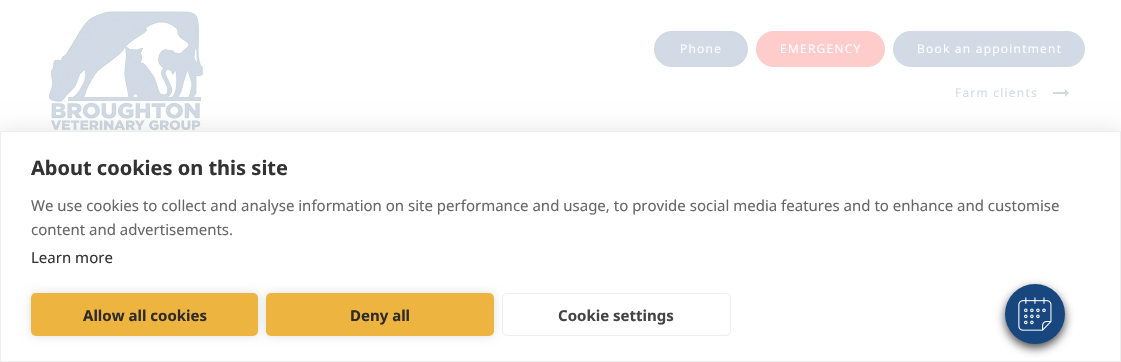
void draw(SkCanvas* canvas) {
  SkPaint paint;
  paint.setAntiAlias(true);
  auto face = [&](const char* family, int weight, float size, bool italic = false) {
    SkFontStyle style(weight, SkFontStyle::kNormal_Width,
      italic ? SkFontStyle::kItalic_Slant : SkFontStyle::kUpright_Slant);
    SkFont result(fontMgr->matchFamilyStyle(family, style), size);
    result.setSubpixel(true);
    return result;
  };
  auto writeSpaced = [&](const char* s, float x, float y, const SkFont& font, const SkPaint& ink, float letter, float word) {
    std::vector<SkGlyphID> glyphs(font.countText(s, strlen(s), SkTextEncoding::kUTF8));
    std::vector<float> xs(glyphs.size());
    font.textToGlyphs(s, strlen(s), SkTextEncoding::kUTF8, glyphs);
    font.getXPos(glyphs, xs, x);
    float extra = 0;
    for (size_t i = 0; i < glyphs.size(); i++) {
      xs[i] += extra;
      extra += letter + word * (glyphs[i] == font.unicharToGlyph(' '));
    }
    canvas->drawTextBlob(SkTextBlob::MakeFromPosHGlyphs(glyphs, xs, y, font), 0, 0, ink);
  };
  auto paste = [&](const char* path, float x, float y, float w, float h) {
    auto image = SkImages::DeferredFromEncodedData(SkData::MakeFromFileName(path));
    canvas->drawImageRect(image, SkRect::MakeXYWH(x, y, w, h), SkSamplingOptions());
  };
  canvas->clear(0xffffffff);
  paste("img/1.png", 47, 8, 161, 123);
  paint.setColor(0xffd1dae5);
  canvas->drawRoundRect(SkRect::MakeXYWH(655, 32, 92, 34), 17, 17, paint);
  paint.setStroke(true);
  paint.setStrokeWidth(2);
  paint.setColor(0xffd1d9e4);
  canvas->drawRoundRect(SkRect::MakeXYWH(655, 32, 92, 34), 17, 17, paint);
  paint.setStroke(false);
  paint.setColor(0xffffcccc);
  canvas->drawRoundRect(SkRect::MakeXYWH(756, 31, 129, 36), 18, 18, paint);
  paint.setColor(0xffd1dae5);
  canvas->drawRoundRect(SkRect::MakeXYWH(893, 31, 192, 36), 18, 18, paint);
  paste("img/2.png", 1053, 89, 16, 8);
  paint.setColor(0x1a000000);
  paint.setMaskFilter(SkMaskFilter::MakeBlur(kNormal_SkBlurStyle, 10));
  canvas->drawRect(SkRect::MakeXYWH(0, 131, 1121, 231), paint);
  paint.setMaskFilter(nullptr);
  paint.setColor(0xffffffff);
  canvas->drawRect(SkRect::MakeXYWH(0.5f, 131.5f, 1120, 230), paint);
  paint.setStroke(true);
  paint.setStrokeWidth(1);
  paint.setColor(0xffeeeeee);
  canvas->drawRect(SkRect::MakeXYWH(0.5f, 131.5f, 1120, 230), paint);
  paint.setStroke(false);
  paint.setColor(0x1f000000);
  paint.setMaskFilter(SkMaskFilter::MakeBlur(kNormal_SkBlurStyle, 5));
  canvas->drawRoundRect(SkRect::MakeXYWH(31, 293, 227, 43), 5, 5, paint);
  paint.setMaskFilter(nullptr);
  paint.setColor(0xffedb540);
  canvas->drawRoundRect(SkRect::MakeXYWH(31, 293, 227, 43), 5, 5, paint);
  paint.setColor(0x1f000000);
  paint.setMaskFilter(SkMaskFilter::MakeBlur(kNormal_SkBlurStyle, 5));
  canvas->drawRoundRect(SkRect::MakeXYWH(266, 293, 228, 43), 5, 5, paint);
  paint.setMaskFilter(nullptr);
  paint.setColor(0xffedb540);
  canvas->drawRoundRect(SkRect::MakeXYWH(266, 293, 228, 43), 5, 5, paint);
  paint.setStroke(true);
  paint.setColor(0xffeeeeee);
  canvas->drawRoundRect(SkRect::MakeXYWH(502.5f, 293.5f, 228, 42), 4.5f, 4.5f, paint);
  paint.setStroke(false);
  paint.setColor(0xb3000000);
  paint.setMaskFilter(SkMaskFilter::MakeBlur(kNormal_SkBlurStyle, 5));
  canvas->drawRoundRect(SkRect::MakeXYWH(1005, 288, 60, 60), 30, 30, paint);
  paint.setMaskFilter(nullptr);
  paint.setColor(0xff18467f);
  canvas->drawCircle(1035, 314, 30, paint);
  paste("img/3.png", 1018, 297, 34, 34);
  auto f0 = face("Open Sans", 400, 12);
  paint.setColor(0xffffffff);
  {
    const struct { const char* s; float x, y; } items[] = {
      {"Phone", 680, 53},
      {"EMERGENCY", 780, 53},
      {"Book an appointment", 917, 53},
    };
    for (auto [s, x, y] : items) {
      writeSpaced(s, x, y, f0, paint, 1.25f, 0);
    }
  }
  paint.setColor(0xffd1dae5);
  writeSpaced("Farm clients", 955, 97, f0, paint, 1.25f, 0);
  auto f1 = face("Noto Sans", 700, 20);
  paint.setColor(0xff333333);
  canvas->drawString("About cookies on this site", 31, 175, f1, paint);
  auto f2 = face("Noto Sans", 400, 15);
  paint.setColor(0xff666666);
  canvas->drawString("We use cookies to collect and analyse information on site performance and usage, to provide social media features and to enhance and customise", 31, 211, f2, paint);
  canvas->drawString("content and advertisements.", 31, 235, f2, paint);
  paint.setColor(0xff333333);
  canvas->drawString("Learn more", 31, 263, f2, paint);
  auto f3 = face("Noto Sans", 700, 15);
  paint.setColor(0xff2e2b29);
  canvas->drawString("Allow all cookies", 83, 321, f3, paint);
  canvas->drawString("Deny all", 350, 321, f3, paint);
  paint.setColor(0xff444444);
  canvas->drawString("Cookie settings", 558, 321, f3, paint);
}
